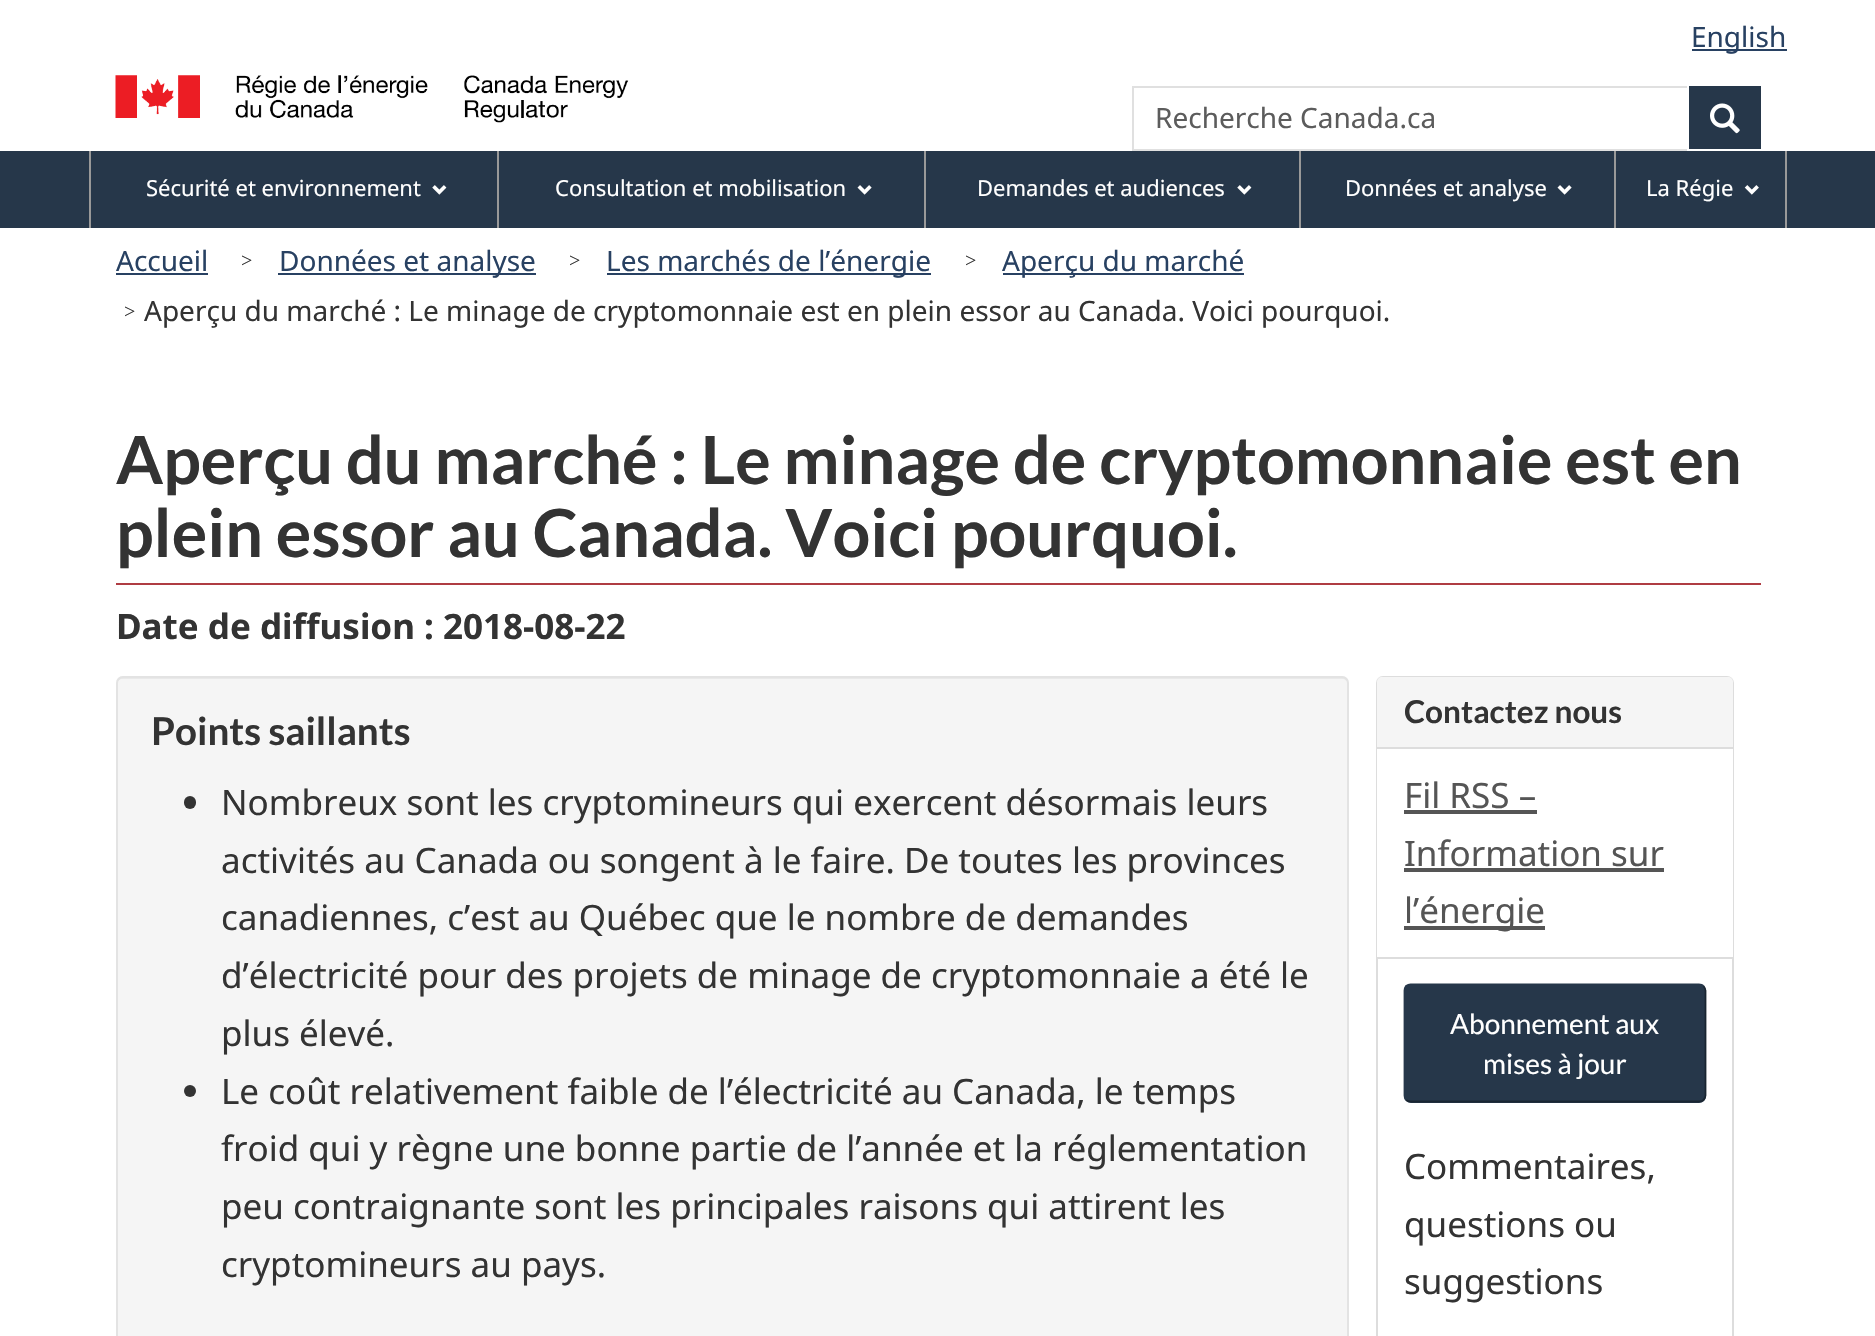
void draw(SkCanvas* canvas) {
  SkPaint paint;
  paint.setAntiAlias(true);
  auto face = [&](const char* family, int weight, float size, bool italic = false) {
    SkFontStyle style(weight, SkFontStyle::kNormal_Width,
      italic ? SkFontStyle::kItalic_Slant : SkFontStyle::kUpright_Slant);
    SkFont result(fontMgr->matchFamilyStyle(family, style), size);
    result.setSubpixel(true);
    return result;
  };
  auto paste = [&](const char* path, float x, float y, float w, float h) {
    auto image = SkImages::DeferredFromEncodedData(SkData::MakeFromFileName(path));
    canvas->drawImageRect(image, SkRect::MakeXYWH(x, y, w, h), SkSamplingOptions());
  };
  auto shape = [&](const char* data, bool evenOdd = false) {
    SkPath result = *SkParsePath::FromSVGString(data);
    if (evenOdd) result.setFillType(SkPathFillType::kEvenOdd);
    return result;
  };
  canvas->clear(0xffffffff);
  paint.setColor(0xff284162);
  canvas->drawRect(SkRect::MakeXYWH(1692, 49, 95, 2), paint);
  paste("img/1.png", 115, 75, 514, 48);
  {
    const struct { float x, y, w, h; SkColor color; } items[] = {
      {1132, 86, 555, 2, 0xffe0e0e0},
      {1132, 149, 555, 2, 0xffe0e0e0},
      {1132, 86, 2, 65, 0xffe0e0e0},
      {1689, 86, 72, 63, 0xff26374a},
    };
    for (auto [x, y, w, h, color] : items) {
      paint.setColor(color);
      canvas->drawRect(SkRect::MakeXYWH(x, y, w, h), paint);
    }
  }
  paste("img/2.png", 1710, 103, 30, 31);
  {
    const struct { float x, y, w, h; SkColor color; } items[] = {
      {0, 151, 1875, 77, 0xff26374a},
      {1785, 151, 2, 77, 0xff999999},
      {89, 151, 2, 77, 0xff999999},
    };
    for (auto [x, y, w, h, color] : items) {
      paint.setColor(color);
      canvas->drawRect(SkRect::MakeXYWH(x, y, w, h), paint);
    }
  }
  paste("img/3.png", 432, 185, 15, 10);
  canvas->drawRect(SkRect::MakeXYWH(497, 151, 2, 77), paint);
  paste("img/4.png", 857, 185, 15, 10);
  canvas->drawRect(SkRect::MakeXYWH(924, 151, 2, 77), paint);
  paste("img/3.png", 1237, 185, 15, 10);
  canvas->drawRect(SkRect::MakeXYWH(1299, 151, 2, 77), paint);
  paste("img/4.png", 1557, 185, 15, 10);
  canvas->drawRect(SkRect::MakeXYWH(1614, 151, 2, 77), paint);
  paste("img/5.png", 1744, 185, 15, 10);
  {
    const struct { float x, y, w, h; SkColor color; } items[] = {
      {116, 273, 92, 2, 0xff284162},
      {278, 273, 258, 2, 0xff284162},
      {607, 273, 324, 2, 0xff284162},
      {1003, 273, 241, 2, 0xff284162},
      {116, 583, 1645, 2, 0xffaf3c43},
    };
    for (auto [x, y, w, h, color] : items) {
      paint.setColor(color);
      canvas->drawRect(SkRect::MakeXYWH(x, y, w, h), paint);
    }
  }
  paint.setColor(0xfff5f5f5);
  canvas->drawRoundRect(SkRect::MakeXYWH(116, 676, 1233, 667), 7, 7, paint);
  paint.setColor(0xffe9e9e9);
  canvas->drawPath(shape("M122 679H1342C1345 679 1348 681 1348 684V682C1348 679 1346 677 1343 677H122C119 677 117 679 117 682V684C117 681 120 679 122 679Z"), paint);
  paint.setStroke(true);
  paint.setStrokeWidth(2);
  paint.setColor(0xffe3e3e3);
  canvas->drawRoundRect(SkRect::MakeXYWH(117, 677, 1231, 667), 6, 6, paint);
  paint.setStroke(false);
  paint.setColor(0xff333333);
  canvas->drawRoundRect(SkRect::MakeXYWH(184, 796, 12, 13), 6, 6, paint);
  canvas->drawCircle(190, 1091, 6, paint);
  paint.setStroke(true);
  paint.setColor(0xffdddddd);
  canvas->drawRoundRect(SkRect::MakeXYWH(1377, 677, 356, 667), 6, 6, paint);
  paint.setStroke(false);
  paint.setColor(0xfff5f5f5);
  canvas->drawPath(shape("M1382 677H1728C1731 677 1733 679 1733 682V749H1377V682C1377 679 1379 677 1382 677Z"), paint);
  {
    const struct { float x, y, w, h; SkColor color; } items[] = {
      {1377, 747, 356, 2, 0xffdddddd},
      {1377, 749, 356, 208, 0xffffffff},
      {1377, 957, 356, 2, 0xffdddddd},
      {1404, 810, 133, 4, 0xff555555},
      {1404, 868, 260, 4, 0xff555555},
      {1404, 926, 141, 4, 0xff555555},
    };
    for (auto [x, y, w, h, color] : items) {
      paint.setColor(color);
      canvas->drawRect(SkRect::MakeXYWH(x, y, w, h), paint);
    }
  }
  paint.setColor(0xff26374a);
  canvas->drawRoundRect(SkRect::MakeXYWH(1404, 984, 302, 119), 7, 7, paint);
  paint.setStroke(true);
  paint.setStrokeWidth(1.8f);
  paint.setColor(0xff192531);
  canvas->drawPath(shape("M1703.5 986C1704.5 987.5 1705.5 989 1705.5 990.5V1095.5C1705.5 1097 1704.5 1098.5 1703.5 1100C1702.5 1101 1701 1101.5 1699 1101.5H1410.5C1409 1101.5 1407.5 1101 1406 1100"), paint);
  paint.setColor(0xff26374a);
  canvas->drawPath(shape("M1406 1100C1405 1098.5 1404.5 1097 1404.5 1095.5V990.5C1404.5 989 1405 987.5 1406 986C1407.5 985 1409 984.5 1410.5 984.5H1699C1701 984.5 1702.5 985 1703.5 986"), paint);
  auto f0 = face("Noto Sans", 400, 28);
  paint.setStroke(false);
  paint.setColor(0xff284162);
  canvas->drawString("English", 1691, 47, f0, paint);
  paint.setColor(0xff5c5c5c);
  canvas->drawString("Recherche Canada.ca", 1155, 128, f0, paint);
  auto f1 = face("Noto Sans", 400, 22);
  paint.setColor(0xffffffff);
  {
    const struct { const char* s; float x, y; } items[] = {
      {"Sécurité et environnement", 146, 196},
      {"Consultation et mobilisation", 555, 196},
      {"Demandes et audiences", 977, 196},
      {"Données et analyse", 1345, 196},
      {"La Régie", 1646, 196},
    };
    for (auto [s, x, y] : items) {
      canvas->drawString(s, x, y, f1, paint);
    }
  }
  paint.setColor(0xff284162);
  canvas->drawString("Accueil", 116, 271, f0, paint);
  auto f2 = face("Liberation Serif", 400, 20);
  paint.setColor(0xff333333);
  canvas->drawString(">", 241, 267, f2, paint);
  paint.setColor(0xff284162);
  canvas->drawString("Données et analyse", 279, 271, f0, paint);
  paint.setColor(0xff333333);
  canvas->drawString(">", 569, 267, f2, paint);
  paint.setColor(0xff284162);
  canvas->drawString("Les marchés de l’énergie", 606, 271, f0, paint);
  paint.setColor(0xff333333);
  canvas->drawString(">", 965, 267, f2, paint);
  paint.setColor(0xff284162);
  canvas->drawString("Aperçu du marché", 1002, 271, f0, paint);
  paint.setColor(0xff333333);
  canvas->drawString(">", 124, 318, f2, paint);
  canvas->drawString("Aperçu du marché : Le minage de cryptomonnaie est en plein essor au Canada. Voici pourquoi.", 144, 321, f0, paint);
  auto f3 = face("Lato", 700, 66.5f);
  canvas->drawString("Aperçu du marché : Le minage de cryptomonnaie est en", 116, 484, f3, paint);
  canvas->drawString("plein essor au Canada. Voici pourquoi.", 116, 557, f3, paint);
  auto f4 = face("Noto Sans", 700, 35);
  canvas->drawString("Date de diffusion : 2018-08-22", 116, 639, f4, paint);
  auto f5 = face("Lato", 700, 38.5f);
  canvas->drawString("Points saillants", 151, 745, f5, paint);
  auto f6 = face("Noto Sans", 400, 35);
  {
    const struct { const char* s; float x, y; } items[] = {
      {"Nombreux sont les cryptomineurs qui exercent désormais leurs", 221, 815},
      {"activités au Canada ou songent à le faire. De toutes les provinces", 221, 873},
      {"canadiennes, c’est au Québec que le nombre de demandes", 221, 930},
      {"d’électricité pour des projets de minage de cryptomonnaie a été le", 221, 988},
      {"plus élevé.", 221, 1046},
      {"Le coût relativement faible de l’électricité au Canada, le temps", 221, 1104},
      {"froid qui y règne une bonne partie de l’année et la réglementation", 221, 1161},
      {"peu contraignante sont les principales raisons qui attirent les", 221, 1219},
      {"cryptomineurs au pays.", 221, 1277},
    };
    for (auto [s, x, y] : items) {
      canvas->drawString(s, x, y, f6, paint);
    }
  }
  auto f7 = face("Lato", 700, 31.5f);
  canvas->drawString("Contactez nous", 1404, 723, f7, paint);
  paint.setColor(0xff555555);
  {
    const struct { const char* s; float x, y; } items[] = {
      {"Fil RSS –", 1404, 808},
      {"Information sur", 1404, 866},
      {"l’énergie", 1404, 923},
    };
    for (auto [s, x, y] : items) {
      canvas->drawString(s, x, y, f6, paint);
    }
  }
  auto f8 = face("Lato", 400, 28);
  paint.setColor(0xffffffff);
  canvas->drawString("Abonnement aux", 1450, 1034, f8, paint);
  canvas->drawString("mises à jour", 1483, 1074, f8, paint);
  paint.setColor(0xff333333);
  {
    const struct { const char* s; float x, y; } items[] = {
      {"Commentaires,", 1404, 1179},
      {"questions ou", 1404, 1237},
      {"suggestions", 1404, 1294},
    };
    for (auto [s, x, y] : items) {
      canvas->drawString(s, x, y, f6, paint);
    }
  }
}
